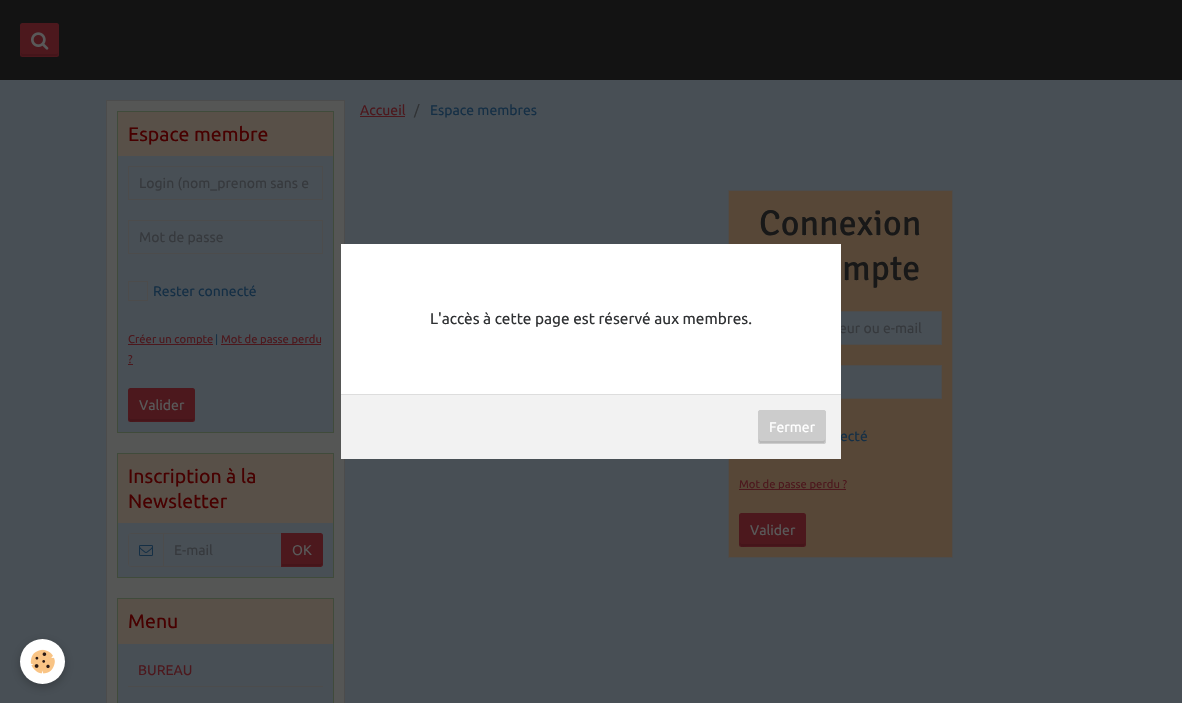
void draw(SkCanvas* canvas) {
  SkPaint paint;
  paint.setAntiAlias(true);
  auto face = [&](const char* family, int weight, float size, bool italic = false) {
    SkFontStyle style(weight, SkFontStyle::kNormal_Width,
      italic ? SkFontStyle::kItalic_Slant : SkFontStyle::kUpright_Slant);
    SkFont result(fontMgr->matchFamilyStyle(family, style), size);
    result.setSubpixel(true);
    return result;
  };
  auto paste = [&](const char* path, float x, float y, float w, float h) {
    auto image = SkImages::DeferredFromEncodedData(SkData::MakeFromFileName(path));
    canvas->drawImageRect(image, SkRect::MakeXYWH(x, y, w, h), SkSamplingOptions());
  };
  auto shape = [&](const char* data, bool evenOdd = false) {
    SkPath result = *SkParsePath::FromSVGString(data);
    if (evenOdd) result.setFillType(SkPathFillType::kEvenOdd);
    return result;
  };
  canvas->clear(0xff484f55);
  paint.setColor(0xff131313);
  canvas->drawRect(SkRect::MakeXYWH(0, 0, 1182, 80), paint);
  paint.setColor(0xff4c181d);
  canvas->drawRoundRect(SkRect::MakeXYWH(20, 23, 39, 34), 2.5f, 2.5f, paint);
  paint.setColor(0xff45151a);
  canvas->drawPath(shape("M21 52C21 57.5 22 56 28 56H51C57 56 58 57.5 58 52C58 53 57 54 56 54H23C22 54 21 53 21 52Z"), paint);
  paste("img/1.png", 31, 32, 18, 18);
  paint.setColor(0xff555655);
  canvas->drawRect(SkRect::MakeXYWH(106.5f, 100.5f, 238, 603), paint);
  paint.setStroke(true);
  paint.setStrokeWidth(1);
  paint.setColor(0xff4c4c4c);
  canvas->drawRect(SkRect::MakeXYWH(106.5f, 100.5f, 238, 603), paint);
  paint.setStroke(false);
  paint.setColor(0xff484f55);
  canvas->drawRect(SkRect::MakeXYWH(118, 156, 215, 276), paint);
  paint.setStroke(true);
  paint.setColor(0xff404b3b);
  canvas->drawRect(SkRect::MakeXYWH(117.5f, 111.5f, 216, 321), paint);
  paint.setStroke(false);
  paint.setColor(0xff585048);
  canvas->drawRect(SkRect::MakeXYWH(118, 112, 215, 44), paint);
  paint.setStroke(true);
  paint.setColor(0xff4c4c4c);
  canvas->drawRect(SkRect::MakeXYWH(128.5f, 166.5f, 194, 33), paint);
  canvas->drawRect(SkRect::MakeXYWH(128.5f, 220.5f, 194, 33), paint);
  canvas->drawRect(SkRect::MakeXYWH(128.5f, 281.5f, 19, 19), paint);
  paint.setStroke(false);
  {
    const struct { float x, y, w, h; SkColor color; } items[] = {
      {128, 344, 85, 1, 0xff4c181d},
      {221, 344, 100, 1, 0xff4c181d},
      {128, 364, 5, 1, 0xff4c181d},
    };
    for (auto [x, y, w, h, color] : items) {
      paint.setColor(color);
      canvas->drawRect(SkRect::MakeXYWH(x, y, w, h), paint);
    }
  }
  canvas->drawRoundRect(SkRect::MakeXYWH(128, 388, 67, 34), 2.5f, 2.5f, paint);
  paint.setColor(0xff45151a);
  canvas->drawPath(shape("M129 417C129 424 132 421 141 421H182C191 421 194 424 194 417C194 418 193 419 192 419H130Z"), paint);
  paint.setColor(0xff484f55);
  canvas->drawRect(SkRect::MakeXYWH(118, 523, 215, 54), paint);
  paint.setStroke(true);
  paint.setColor(0xff404b3b);
  canvas->drawRect(SkRect::MakeXYWH(117.5f, 453.5f, 216, 124), paint);
  paint.setStroke(false);
  paint.setColor(0xff585048);
  canvas->drawRect(SkRect::MakeXYWH(118, 454, 215, 69), paint);
  paint.setStroke(true);
  paint.setColor(0xff4c4c4c);
  canvas->drawPath(shape("M130.5 533.5H163.5V566.5H130.5C129.5 566.5 128.5 565.5 128.5 564.5V535.5C128.5 534.5 129.5 533.5 130.5 533.5Z"), paint);
  paste("img/2.png", 139, 545, 14, 11);
  canvas->drawRect(SkRect::MakeXYWH(163.5f, 533.5f, 118, 33), paint);
  paint.setStroke(false);
  paint.setColor(0xff4c181d);
  canvas->drawPath(shape("M281 533H320.5C322 533 323 534 323 535.5V564.5C323 566 322 567 320.5 567H281Z"), paint);
  paint.setColor(0xff45151a);
  canvas->drawPath(shape("M282 564V566H320C321 566 322 565 322 564V562C322 563 321 564 320 564Z"), paint);
  paint.setColor(0xff484f55);
  canvas->drawRect(SkRect::MakeXYWH(118, 644, 215, 59), paint);
  paint.setStroke(true);
  paint.setColor(0xff404b3b);
  canvas->drawRect(SkRect::MakeXYWH(117.5f, 598.5f, 216, 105), paint);
  paint.setStroke(false);
  {
    const struct { float x, y, w, h; SkColor color; } items[] = {
      {118, 599, 215, 45, 0xff585048},
      {128, 686, 195, 1, 0xff4c4c4c},
      {360, 116, 45, 1, 0xff4c181d},
    };
    for (auto [x, y, w, h, color] : items) {
      paint.setColor(color);
      canvas->drawRect(SkRect::MakeXYWH(x, y, w, h), paint);
    }
  }
  paint.setColor(0xff574737);
  canvas->drawRect(SkRect::MakeXYWH(728.5f, 190.5f, 224, 367), paint);
  paint.setStroke(true);
  paint.setColor(0xff4c4c4c);
  canvas->drawRect(SkRect::MakeXYWH(728.5f, 190.5f, 224, 367), paint);
  paint.setStroke(false);
  paint.setColor(0xff484f55);
  canvas->drawRect(SkRect::MakeXYWH(841, 312, 100, 32), paint);
  paint.setStroke(true);
  paint.setColor(0xff4c4c4c);
  canvas->drawRect(SkRect::MakeXYWH(739.5f, 311.5f, 202, 33), paint);
  paint.setStroke(false);
  paint.setColor(0xff484f55);
  canvas->drawRect(SkRect::MakeXYWH(841, 366, 100, 32), paint);
  paint.setStroke(true);
  paint.setColor(0xff4c4c4c);
  canvas->drawRect(SkRect::MakeXYWH(739.5f, 365.5f, 202, 33), paint);
  paint.setStroke(false);
  paint.setColor(0xff4c181d);
  canvas->drawRect(SkRect::MakeXYWH(739, 489, 107, 1), paint);
  canvas->drawRoundRect(SkRect::MakeXYWH(739, 513, 67, 34), 2.5f, 2.5f, paint);
  paint.setColor(0xff45151a);
  canvas->drawPath(shape("M740 542C740 549 743 546 752 546H793C802 546 805 549 805 542C805 543 804 544 803 544H741Z"), paint);
  paint.setColor(0xffdddddd);
  canvas->drawRect(SkRect::MakeXYWH(341, 394, 500, 1), paint);
  paint.setColor(0x3d000000);
  paint.setMaskFilter(SkMaskFilter::MakeBlur(kNormal_SkBlurStyle, 5));
  canvas->drawRoundRect(SkRect::MakeXYWH(20, 642, 45, 45), 22.5f, 22.5f, paint);
  paint.setMaskFilter(nullptr);
  paint.setColor(0xffffffff);
  canvas->drawCircle(42.5f, 661.5f, 22.5f, paint);
  paste("img/3.png", 30, 649, 25, 25);
  auto f0 = face("Ubuntu", 400, 19.5f);
  paint.setColor(0xff470000);
  canvas->drawString("Espace membre", 128, 141, f0, paint);
  auto f1 = face("Ubuntu", 400, 14);
  paint.setColor(0xff36393d);
  canvas->drawString("Login (nom_prenom sans e", 139, 188, f1, paint);
  canvas->drawString("Mot de passe", 139, 242, f1, paint);
  paint.setColor(0xff152f45);
  canvas->drawString("Rester connecté", 153, 296, f1, paint);
  auto f2 = face("Ubuntu", 400, 11.25f);
  paint.setColor(0xff4c181d);
  canvas->drawString("Créer un compte", 128, 343, f2, paint);
  paint.setColor(0xff152f45);
  canvas->drawString("|", 215, 343, f2, paint);
  paint.setColor(0xff4c181d);
  canvas->drawString("Mot de passe perdu", 221, 343, f2, paint);
  canvas->drawString("?", 128, 363, f2, paint);
  paint.setColor(0xff595959);
  canvas->drawString("Valider", 139, 410, f1, paint);
  paint.setColor(0xff470000);
  canvas->drawString("Inscription à la", 128, 483, f0, paint);
  canvas->drawString("Newsletter", 128, 508, f0, paint);
  paint.setColor(0xff36393d);
  canvas->drawString("E-mail", 174, 555, f1, paint);
  paint.setColor(0xff595959);
  canvas->drawString("OK", 292, 555, f1, paint);
  paint.setColor(0xff470000);
  canvas->drawString("Menu", 128, 628, f0, paint);
  paint.setColor(0xff4c181d);
  canvas->drawString("BUREAU", 138, 675, f1, paint);
  canvas->drawString("Accueil", 360, 115, f1, paint);
  paint.setColor(0xff303234);
  canvas->drawString("/", 414, 115, f1, paint);
  paint.setColor(0xff152f45);
  canvas->drawString("Espace membres", 430, 115, f1, paint);
  auto f3 = face("Signika", 400, 36);
  paint.setColor(0xff181818);
  canvas->drawString("Connexion", 759, 235, f3, paint);
  canvas->drawString("mpte", 842, 280, f3, paint);
  paint.setColor(0xff36393d);
  canvas->drawString("eur ou e-mail", 839, 333, f1, paint);
  paint.setColor(0xff152f45);
  canvas->drawString("ecté", 840, 441, f1, paint);
  paint.setColor(0xff4c181d);
  canvas->drawString("Mot de passe perdu ?", 739, 488, f2, paint);
  paint.setColor(0xff595959);
  canvas->drawString("Valider", 750, 535, f1, paint);
  paint.setColor(0xffffffff);
  canvas->drawRect(SkRect::MakeXYWH(341, 244, 500, 150), paint);
  auto f4 = face("Ubuntu", 400, 15.4f);
  paint.setColor(0xff303234);
  canvas->drawString("L'accès à cette page est réservé aux membres.", 430, 324, f4, paint);
  paint.setColor(0xfff2f2f2);
  canvas->drawRect(SkRect::MakeXYWH(341, 395, 500, 64), paint);
  paint.setColor(0xffcccccc);
  canvas->drawRoundRect(SkRect::MakeXYWH(758, 410, 68, 34), 2.5f, 2.5f, paint);
  paint.setColor(0xffb8b8b8);
  canvas->drawPath(shape("M759 439C759 446 762 443 771 443H813C822 443 825 446 825 439C825 440 824 441 823 441H760Z"), paint);
  paint.setStroke(true);
  paint.setColor(0xffcccccc);
  canvas->drawRoundRect(SkRect::MakeXYWH(758.5f, 410.5f, 67, 33), 2, 2, paint);
  paint.setStroke(false);
  paint.setColor(0xffffffff);
  canvas->drawString("Fermer", 769, 432, f1, paint);
}
